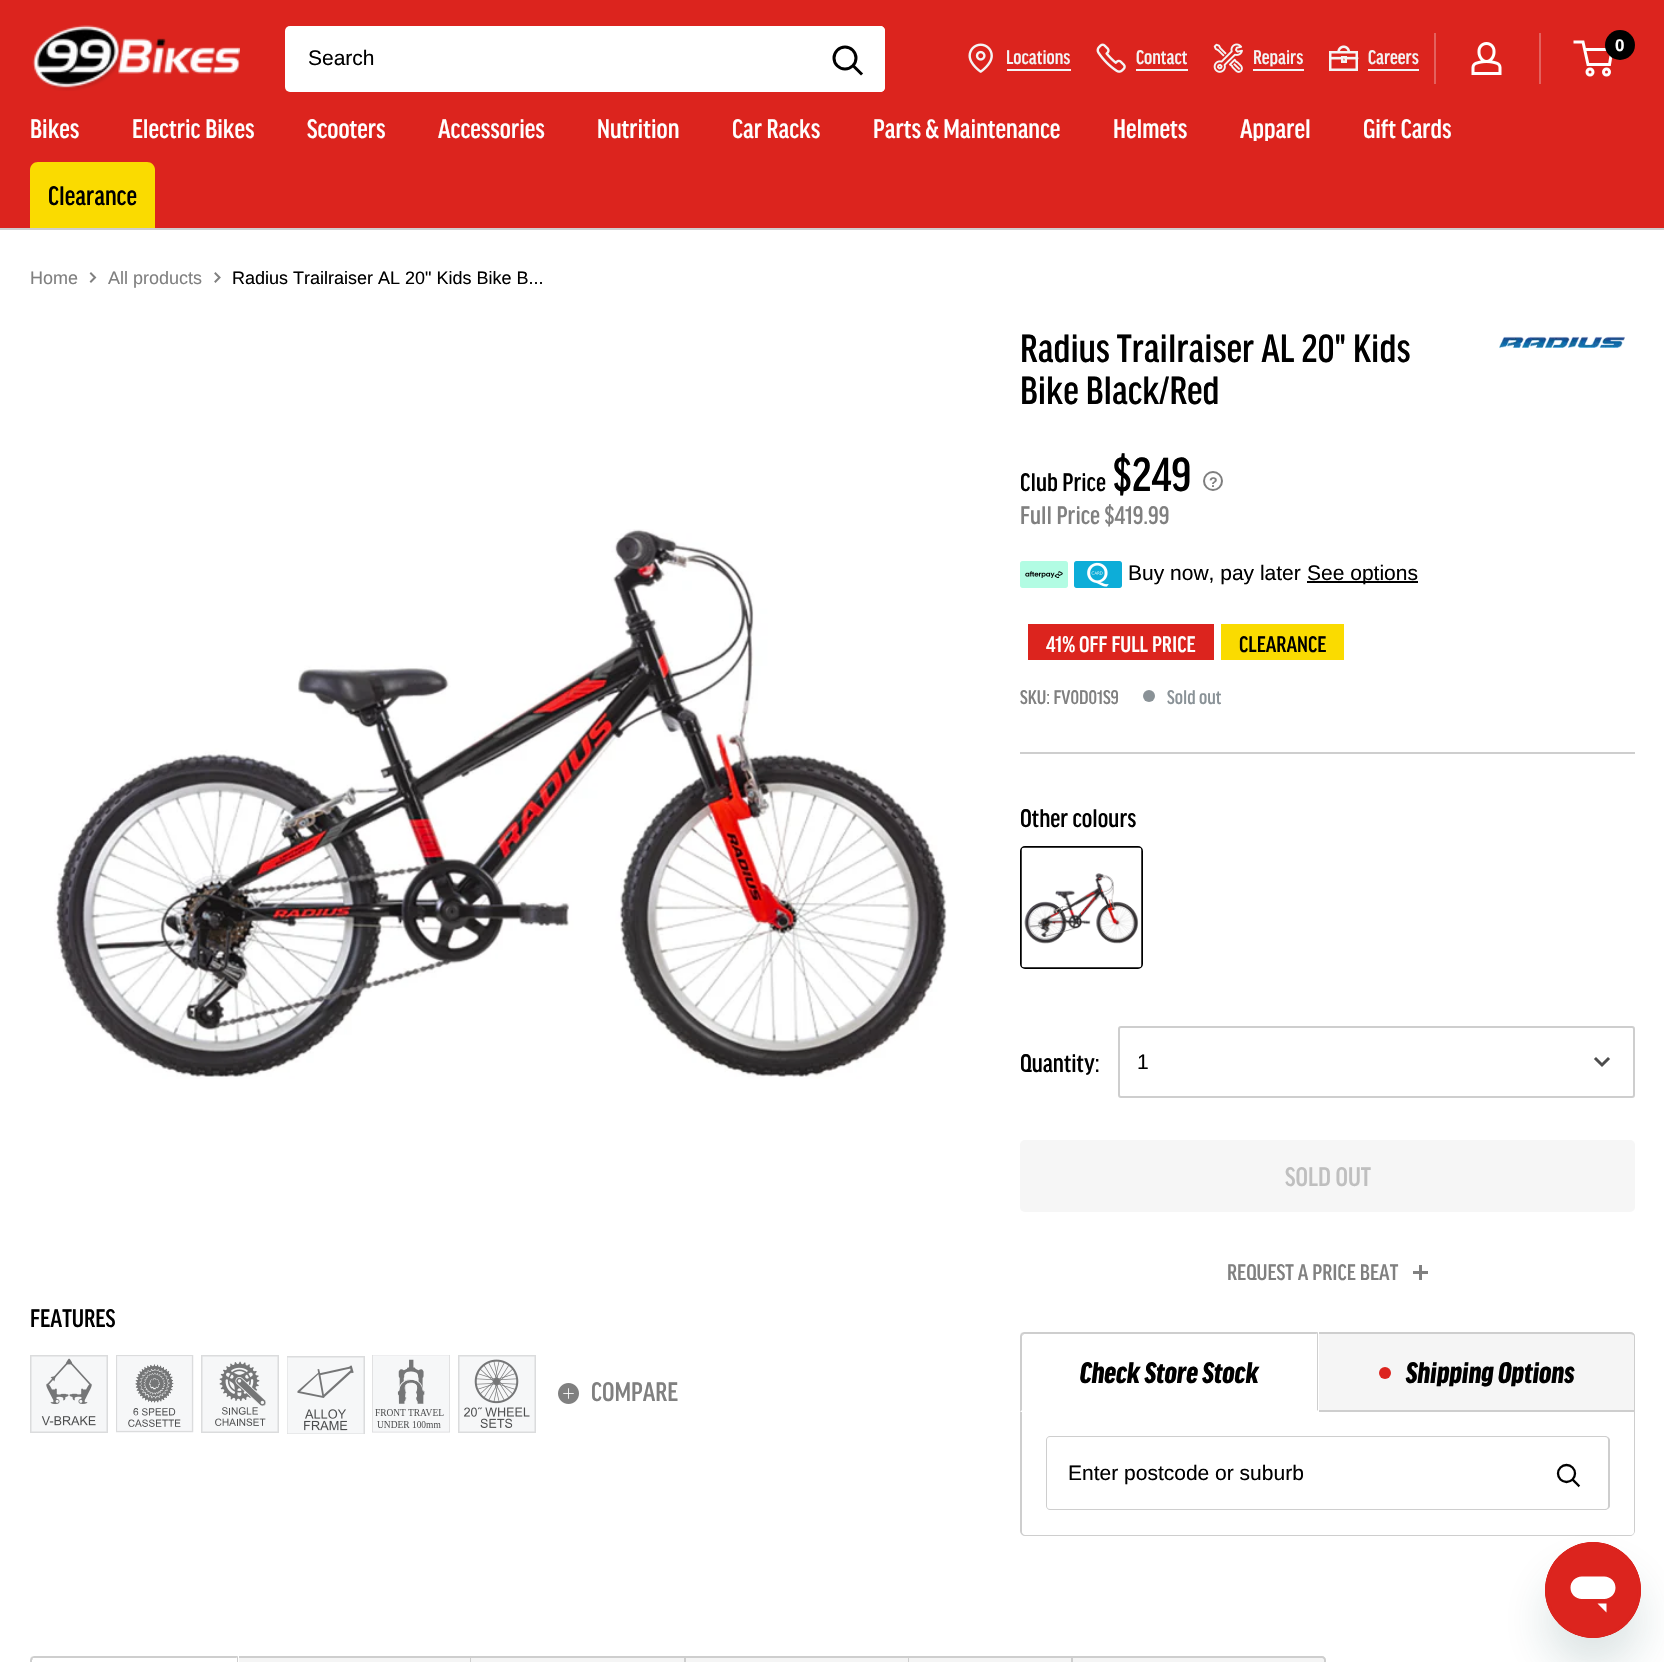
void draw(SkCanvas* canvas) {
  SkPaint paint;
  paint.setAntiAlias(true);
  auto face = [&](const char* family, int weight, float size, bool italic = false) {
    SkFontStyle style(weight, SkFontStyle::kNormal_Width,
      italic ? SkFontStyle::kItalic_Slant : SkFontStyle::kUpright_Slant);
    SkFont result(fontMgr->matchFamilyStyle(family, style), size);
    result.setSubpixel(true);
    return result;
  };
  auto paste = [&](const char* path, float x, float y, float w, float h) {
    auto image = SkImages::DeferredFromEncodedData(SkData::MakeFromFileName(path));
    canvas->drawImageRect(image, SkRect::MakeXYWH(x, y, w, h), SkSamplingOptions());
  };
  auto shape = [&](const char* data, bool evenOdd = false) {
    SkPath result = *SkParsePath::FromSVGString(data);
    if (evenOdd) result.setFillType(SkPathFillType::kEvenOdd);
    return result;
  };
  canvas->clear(0xffffffff);
  paint.setColor(0xffdc241e);
  canvas->drawRect(SkRect::MakeXYWH(0, 0, 1664, 228), paint);
  paste("img/1.png", 32, 25, 208, 66);
  paint.setColor(0xffffffff);
  canvas->drawRoundRect(SkRect::MakeXYWH(285, 26, 600, 66), 5, 5, paint);
  canvas->drawPath(shape("M810 26H880C883 26 885 28 885 31V87C885 90 883 92 880 92H810Z"), paint);
  paint.setStroke(true);
  paint.setStrokeWidth(3);
  paint.setStrokeCap(SkPaint::kSquare_Cap);
  paint.setColor(0xff000000);
  canvas->drawPath(shape("M861 73.5L853.5 66"), paint);
  paint.setStrokeCap(SkPaint::kButt_Cap);
  canvas->drawCircle(845, 58, 11, paint);
  paint.setStroke(false);
  paint.setColor(0xffe3625e);
  canvas->drawRect(SkRect::MakeXYWH(1434, 33, 2, 51), paint);
  paste("img/2.png", 1471, 42, 31, 33);
  canvas->drawRect(SkRect::MakeXYWH(1539, 33, 2, 51), paint);
  paint.setStroke(true);
  paint.setColor(0xffffffff);
  canvas->drawCircle(1590, 72, 3, paint);
  canvas->drawCircle(1606.5f, 72, 3, paint);
  canvas->drawPath(shape("M1584.5 49.5H1612L1609.5 64.5H1588L1583 42H1573.5"), paint);
  paint.setStroke(false);
  paint.setColor(0xff000000);
  canvas->drawCircle(1620, 45, 15, paint);
  paste("img/3.png", 968, 43, 25, 30);
  paint.setColor(0xfff4f4f4);
  canvas->drawRect(SkRect::MakeXYWH(1007, 69, 64, 2), paint);
  paste("img/4.png", 1096, 43, 30, 30);
  canvas->drawRect(SkRect::MakeXYWH(1136, 69, 52, 2), paint);
  paste("img/5.png", 1213, 43, 30, 30);
  canvas->drawRect(SkRect::MakeXYWH(1253, 69, 51, 2), paint);
  paste("img/6.png", 1329, 45, 30, 26);
  canvas->drawRect(SkRect::MakeXYWH(1368, 69, 51, 2), paint);
  paint.setColor(0xffcecece);
  canvas->drawRect(SkRect::MakeXYWH(0, 228, 1664, 2), paint);
  paint.setColor(0xfffadb00);
  canvas->drawPath(shape("M38 162H147C151.5 162 155 165.5 155 170V228H30V170C30 165.5 33.5 162 38 162Z"), paint);
  paint.setStroke(true);
  paint.setStrokeWidth(2);
  paint.setStrokeCap(SkPaint::kSquare_Cap);
  paint.setColor(0xff808080);
  canvas->drawPath(shape("M91 273.5L95 277.5L91 281.5"), paint);
  canvas->drawPath(shape("M215.5 273.5L219.5 277.5L215.5 281.5"), paint);
  paste("img/7.png", 54, 529, 893, 550);
  paste("img/8.png", 30, 1355, 78, 78);
  paste("img/9.png", 116, 1355, 78, 78);
  paste("img/10.png", 201, 1355, 78, 78);
  paste("img/11.png", 287, 1356, 78, 78);
  paste("img/12.png", 372, 1355, 78, 78);
  paste("img/13.png", 458, 1355, 78, 78);
  paste("img/14.png", 558, 1383, 21, 21);
  paste("img/15.png", 1499, 336, 126, 12);
  paint.setStrokeCap(SkPaint::kButt_Cap);
  paint.setColor(0xff7e7e7e);
  canvas->drawCircle(1213, 481, 9, paint);
  paste("img/16.png", 1020, 561, 48, 27);
  paste("img/17.png", 1074, 561, 48, 27);
  paint.setStroke(false);
  {
    const struct { float x, y, w, h; SkColor color; } items[] = {
      {1307, 581, 111, 2, 0xff000000},
      {1028, 624, 186, 36, 0xffdc241e},
      {1221, 624, 123, 36, 0xfffadb00},
    };
    for (auto [x, y, w, h, color] : items) {
      paint.setColor(color);
      canvas->drawRect(SkRect::MakeXYWH(x, y, w, h), paint);
    }
  }
  paint.setColor(0xff8a9297);
  canvas->drawCircle(1149, 696, 6, paint);
  paint.setColor(0xffcecece);
  canvas->drawRect(SkRect::MakeXYWH(1020, 752, 615, 2), paint);
  paint.setStroke(true);
  paint.setColor(0xff000000);
  canvas->drawRoundRect(SkRect::MakeXYWH(1021, 847, 121, 121), 4, 4, paint);
  paste("img/18.png", 1021, 847, 121, 121);
  paint.setColor(0xffcecece);
  canvas->drawRoundRect(SkRect::MakeXYWH(1119, 1027, 515, 70), 2, 2, paint);
  paint.setStrokeWidth(3);
  paint.setStrokeCap(SkPaint::kSquare_Cap);
  paint.setColor(0xff4d4d4d);
  canvas->drawPath(shape("M1608 1059L1602 1065L1596 1059"), paint);
  paint.setStroke(false);
  paint.setColor(0xfff6f6f6);
  canvas->drawRoundRect(SkRect::MakeXYWH(1020, 1140, 615, 72), 5, 5, paint);
  paint.setColor(0xff808080);
  canvas->drawRect(SkRect::MakeXYWH(1419, 1265, 3, 15), paint);
  canvas->drawRect(SkRect::MakeXYWH(1413, 1271, 15, 3), paint);
  paint.setColor(0xfff5f5f5);
  canvas->drawPath(shape("M1319 1332H1630C1633 1332 1635 1334 1635 1337V1412H1319Z"), paint);
  paint.setColor(0xffcecece);
  canvas->drawPath(shape("M1318 1332H1630C1633 1332 1635 1334 1635 1336V1412H1318ZM1318 1334H1630C1632 1334 1634 1335 1634 1336V1410H1318Z", true), paint);
  paint.setStroke(true);
  paint.setStrokeWidth(2);
  paint.setStrokeCap(SkPaint::kButt_Cap);
  canvas->drawPath(shape("M1021 1411H1634V1531C1634 1533 1632 1535 1630 1535H1025C1023 1535 1021 1533 1021 1531Z"), paint);
  paint.setStroke(false);
  paint.setColor(0xffffffff);
  canvas->drawPath(shape("M1025 1332H1319V1412H1020V1337C1020 1334 1022 1332 1025 1332Z"), paint);
  paint.setColor(0xffcecece);
  canvas->drawPath(shape("M1024 1332L1021 1333L1023 1335L1024 1334H1316L1318 1332Z"), paint);
  canvas->drawPath(shape("M1318 1332V1411L1317 1410V1334H1316Z"), paint);
  paint.setColor(0xffffffff);
  canvas->drawPath(shape("M1318 1412H1020L1022 1410H1317Z"), paint);
  paint.setColor(0xffcecece);
  canvas->drawPath(shape("M1020 1412L1022 1410V1336L1023 1335L1021 1333L1020 1336Z"), paint);
  paint.setColor(0xffdc241e);
  canvas->drawCircle(1385, 1373, 6, paint);
  paint.setColor(0xffffffff);
  canvas->drawPath(shape("M1022 1412H1634V1532C1634 1533.5 1632.5 1535 1631 1535H1025C1023.5 1535 1022 1533.5 1022 1532Z"), paint);
  paint.setColor(0xffcecece);
  canvas->drawPath(shape("M1050 1436H1530V1510H1050C1048 1510 1046 1508 1046 1506V1440C1046 1438 1048 1436 1050 1436ZM1050 1437H1530V1509H1050C1048 1509 1047 1508 1047 1506V1440C1047 1438 1048 1437 1050 1437Z", true), paint);
  canvas->drawPath(shape("M1530 1436H1605C1607 1436 1610 1438 1610 1440V1506C1610 1508 1607 1510 1605 1510H1530ZM1530 1437H1605C1607 1437 1608 1438 1608 1440V1506C1608 1508 1607 1509 1605 1509H1530Z", true), paint);
  paint.setStroke(true);
  paint.setStrokeWidth(2.3f);
  paint.setStrokeCap(SkPaint::kSquare_Cap);
  paint.setColor(0xff000000);
  canvas->drawPath(shape("M1578.5 1485.5L1573 1480"), paint);
  paint.setStrokeCap(SkPaint::kButt_Cap);
  canvas->drawCircle(1566.5f, 1473.5f, 8.5f, paint);
  paint.setStroke(false);
  paint.setColor(0xffcecece);
  canvas->drawPath(shape("M34 1656L31 1657L33 1659V1658H236L238 1656Z"), paint);
  canvas->drawPath(shape("M238 1656V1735L237 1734V1658H236Z"), paint);
  canvas->drawPath(shape("M30 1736L32 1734V1660L33 1659L31 1657L30 1660Z"), paint);
  {
    const struct { float x, y, w, h; SkColor color; } items[] = {
      {239, 1658, 834, 4, 0xfff5f5f5},
      {239, 1656, 834, 2, 0xffcecece},
      {470, 1656, 1, 6, 0xffcecece},
      {684, 1656, 2, 6, 0xffcecece},
      {908, 1656, 1, 6, 0xffcecece},
      {1071, 1656, 2, 6, 0xffcecece},
    };
    for (auto [x, y, w, h, color] : items) {
      paint.setColor(color);
      canvas->drawRect(SkRect::MakeXYWH(x, y, w, h), paint);
    }
  }
  paint.setColor(0xfff5f5f5);
  canvas->drawPath(shape("M1073 1656H1321C1324 1656 1326 1658 1326 1661V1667H1073Z"), paint);
  paint.setColor(0xffcecece);
  canvas->drawPath(shape("M1072 1656H1322C1324 1656 1326 1658 1326 1660V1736H1072ZM1072 1658H1322C1323 1658 1324 1659 1324 1660V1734H1072Z", true), paint);
  paint.setColor(0x2617494d);
  paint.setMaskFilter(SkMaskFilter::MakeBlur(kNormal_SkBlurStyle, 22.5f));
  canvas->drawRoundRect(SkRect::MakeXYWH(1545, 1572, 96, 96), 48, 48, paint);
  paint.setMaskFilter(nullptr);
  paste("img/19.png", 1545, 1542, 96, 96);
  auto f0 = face("Liberation Sans", 400, 21);
  paint.setColor(0xff000000);
  canvas->drawString("Search", 308, 65, f0, paint);
  auto f1 = face("Liberation Sans", 700, 17);
  paint.setColor(0xffffffff);
  canvas->drawString("0", 1615, 51, f1, paint);
  auto f2 = face("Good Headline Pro", 500, 21);
  paint.setColor(0xfff4f4f4);
  {
    const struct { const char* s; float x, y; } items[] = {
      {"Locations", 1006, 64},
      {"Contact", 1136, 64},
      {"Repairs", 1253, 64},
      {"Careers", 1368, 64},
    };
    for (auto [s, x, y] : items) {
      canvas->drawString(s, x, y, f2, paint);
    }
  }
  auto f3 = face("Good Headline Pro", 500, 28.5f);
  paint.setColor(0xffffffff);
  {
    const struct { const char* s; float x, y; } items[] = {
      {"Bikes", 30, 138},
      {"Electric Bikes", 132, 138},
      {"Scooters", 307, 138},
      {"Accessories", 438, 138},
      {"Nutrition", 597, 138},
      {"Car Racks", 732, 138},
      {"Parts & Maintenance", 873, 138},
      {"Helmets", 1113, 138},
      {"Apparel", 1240, 138},
      {"Gift Cards", 1363, 138},
    };
    for (auto [s, x, y] : items) {
      canvas->drawString(s, x, y, f3, paint);
    }
  }
  paint.setColor(0xff000000);
  canvas->drawString("Clearance", 48, 205, f3, paint);
  auto f4 = face("Liberation Sans", 400, 18);
  paint.setColor(0xff808080);
  canvas->drawString("Home", 30, 284, f4, paint);
  canvas->drawString("All products", 108, 284, f4, paint);
  paint.setColor(0xff000000);
  canvas->drawString("Radius Trailraiser AL 20\" Kids Bike B...", 232, 284, f4, paint);
  auto f5 = face("Good Headline Pro", 500, 27);
  canvas->drawString("FEATURES", 30, 1327, f5, paint);
  paint.setColor(0xff808080);
  canvas->drawString("COMPARE", 591, 1401, f3, paint);
  auto f6 = face("Good Headline Pro", 500, 42);
  paint.setColor(0xff000000);
  canvas->drawString("Radius Trailraiser AL 20\" Kids", 1020, 362, f6, paint);
  canvas->drawString("Bike Black/Red", 1020, 404, f6, paint);
  canvas->drawString("Club Price", 1020, 491, f5, paint);
  auto f7 = face("Good Headline Pro", 500, 51);
  canvas->drawString("$249", 1113, 491, f7, paint);
  auto f8 = face("Liberation Sans", 700, 14);
  paint.setColor(0xff808080);
  canvas->drawString("?", 1209, 487, f8, paint);
  canvas->drawString("Full Price $419.99", 1020, 524, f5, paint);
  paint.setColor(0xff000000);
  canvas->drawString("Buy now, pay later", 1128, 580, f0, paint);
  canvas->drawString("See options", 1307, 580, f0, paint);
  auto f9 = face("Good Headline Pro", 500, 24);
  paint.setColor(0xffffffff);
  canvas->drawString("41% OFF FULL PRICE", 1046, 652, f9, paint);
  paint.setColor(0xff000000);
  canvas->drawString("CLEARANCE", 1239, 652, f9, paint);
  paint.setColor(0xff808080);
  canvas->drawString("SKU: FV0D01S9", 1020, 704, f2, paint);
  paint.setColor(0xff8a9297);
  canvas->drawString("Sold out", 1167, 704, f2, paint);
  paint.setColor(0xff000000);
  canvas->drawString("Other colours", 1020, 827, f5, paint);
  canvas->drawString("Quantity:", 1020, 1072, f5, paint);
  canvas->drawString("1", 1137, 1069, f0, paint);
  paint.setColor(0xffbfbfbf);
  canvas->drawString("SOLD OUT", 1285, 1186, f3, paint);
  paint.setColor(0xff808080);
  canvas->drawString("REQUEST A PRICE BEAT", 1227, 1280, f9, paint);
  auto f10 = face("Good Headline Pro", 900, 31.5f, true);
  paint.setColor(0xff000000);
  canvas->drawString("Check Store Stock", 1080, 1383, f10, paint);
  canvas->drawString("Shipping Options", 1406, 1383, f10, paint);
  canvas->drawString("Enter postcode or suburb", 1068, 1480, f0, paint);
}
